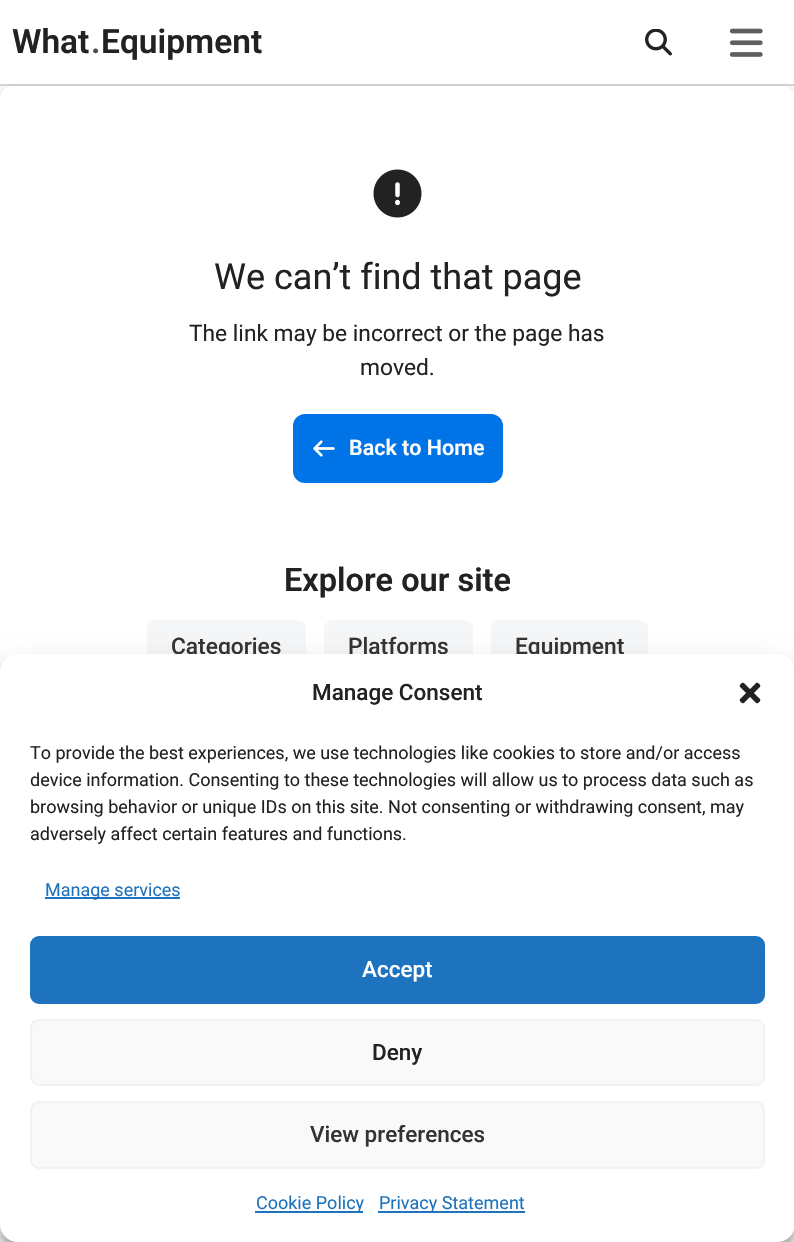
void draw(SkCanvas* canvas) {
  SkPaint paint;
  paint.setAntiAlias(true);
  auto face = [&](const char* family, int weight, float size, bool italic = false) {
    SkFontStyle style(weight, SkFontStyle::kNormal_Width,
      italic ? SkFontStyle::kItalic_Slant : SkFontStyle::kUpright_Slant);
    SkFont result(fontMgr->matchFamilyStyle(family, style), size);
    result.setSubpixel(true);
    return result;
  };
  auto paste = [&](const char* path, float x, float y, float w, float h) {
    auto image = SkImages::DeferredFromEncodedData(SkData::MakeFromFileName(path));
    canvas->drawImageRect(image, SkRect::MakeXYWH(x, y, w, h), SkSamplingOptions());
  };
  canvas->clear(0xffffffff);
  paste("img/1.png", 645, 29, 27, 27);
  paste("img/2.png", 729, 28, 34, 29);
  paint.setColor(0xfffbfbfb);
  canvas->drawRect(SkRect::MakeXYWH(0, 86, 794, 12), paint);
  paint.setColor(0xffd5d5d5);
  canvas->drawRect(SkRect::MakeXYWH(0, 84, 794, 2), paint);
  paint.setColor(0x40000000);
  paint.setMaskFilter(SkMaskFilter::MakeBlur(kNormal_SkBlurStyle, 3));
  canvas->drawRoundRect(SkRect::MakeXYWH(0, 89, 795, 631), 12, 12, paint);
  paint.setMaskFilter(nullptr);
  paint.setColor(0xffffffff);
  canvas->drawRoundRect(SkRect::MakeXYWH(0, 86, 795, 631), 12, 12, paint);
  paste("img/3.png", 373, 169, 49, 49);
  paint.setColor(0xff0073e6);
  canvas->drawRoundRect(SkRect::MakeXYWH(293, 414, 210, 69), 12, 12, paint);
  paste("img/4.png", 313, 440, 22, 17);
  paint.setColor(0xfff5f6f7);
  canvas->drawRoundRect(SkRect::MakeXYWH(147, 620, 159, 55), 9, 9, paint);
  canvas->drawRoundRect(SkRect::MakeXYWH(324, 620, 149, 55), 9, 9, paint);
  canvas->drawRoundRect(SkRect::MakeXYWH(491, 620, 157, 55), 9, 9, paint);
  paint.setColor(0x3b000000);
  paint.setMaskFilter(SkMaskFilter::MakeBlur(kNormal_SkBlurStyle, 4.5f));
  canvas->drawRoundRect(SkRect::MakeXYWH(0, 663, 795, 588), 18, 18, paint);
  paint.setMaskFilter(nullptr);
  paint.setColor(0x30000000);
  paint.setMaskFilter(SkMaskFilter::MakeBlur(kNormal_SkBlurStyle, 15));
  canvas->drawRoundRect(SkRect::MakeXYWH(0, 669, 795, 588), 18, 18, paint);
  paint.setMaskFilter(nullptr);
  auto f0 = face("Roboto", 600, 33.5f);
  paint.setColor(0xff222222);
  canvas->drawString("What", 12, 53, f0, paint);
  paint.setColor(0xff4e4e4e);
  canvas->drawString(".", 91, 53, f0, paint);
  paint.setColor(0xff222222);
  canvas->drawString("Equipment", 101, 53, f0, paint);
  auto f1 = face("Roboto", 400, 36);
  canvas->drawString("We can’t find that page", 214, 289, f1, paint);
  auto f2 = face("Roboto", 400, 22.75f);
  canvas->drawString("The link may be incorrect or the page has", 189, 341, f2, paint);
  canvas->drawString("moved.", 360, 375, f2, paint);
  auto f3 = face("Roboto", 600, 21.5f);
  paint.setColor(0xffffffff);
  canvas->drawString("Back to Home", 349, 455, f3, paint);
  auto f4 = face("Roboto", 600, 32.5f);
  paint.setColor(0xff222222);
  canvas->drawString("Explore our site", 284, 591, f4, paint);
  auto f5 = face("Roboto", 500, 22.75f);
  paint.setColor(0xff333333);
  {
    const struct { const char* s; float x, y; } items[] = {
      {"Categories", 171, 654},
      {"Platforms", 348, 654},
      {"Equipment", 515, 654},
    };
    for (auto [s, x, y] : items) {
      canvas->drawString(s, x, y, f5, paint);
    }
  }
  paint.setColor(0xffffffff);
  canvas->drawRoundRect(SkRect::MakeXYWH(0, 654, 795, 588), 18, 18, paint);
  auto f6 = face("Roboto", 500, 22.5f);
  paint.setColor(0xff222222);
  canvas->drawString("Manage Consent", 312, 700, f6, paint);
  paste("img/5.png", 739, 682, 22, 22);
  auto f7 = face("Roboto", 400, 18);
  {
    const struct { const char* s; float x, y; } items[] = {
      {"To provide the best experiences, we use technologies like cookies to store and/or access", 30, 759},
      {"device information. Consenting to these technologies will allow us to process data such as", 30, 786},
      {"browsing behavior or unique IDs on this site. Not consenting or withdrawing consent, may", 30, 813},
      {"adversely affect certain features and functions.", 30, 840},
    };
    for (auto [s, x, y] : items) {
      canvas->drawString(s, x, y, f7, paint);
    }
  }
  paint.setColor(0xff1e73be);
  canvas->drawRect(SkRect::MakeXYWH(45, 897, 135, 2), paint);
  canvas->drawString("Manage services", 45, 896, f7, paint);
  canvas->drawRoundRect(SkRect::MakeXYWH(31, 937, 733, 66), 8, 8, paint);
  paint.setStroke(true);
  paint.setStrokeWidth(2);
  canvas->drawRoundRect(SkRect::MakeXYWH(31, 937, 733, 66), 8, 8, paint);
  paint.setStroke(false);
  paint.setColor(0xffffffff);
  canvas->drawString("Accept", 362, 977, f6, paint);
  paint.setColor(0xfff9f9f9);
  canvas->drawRoundRect(SkRect::MakeXYWH(31, 1020, 733, 65), 8, 8, paint);
  paint.setStroke(true);
  paint.setColor(0xfff2f2f2);
  canvas->drawRoundRect(SkRect::MakeXYWH(31, 1020, 733, 65), 8, 8, paint);
  paint.setStroke(false);
  paint.setColor(0xff222222);
  canvas->drawString("Deny", 372, 1060, f6, paint);
  paint.setColor(0xfff9f9f9);
  canvas->drawRoundRect(SkRect::MakeXYWH(31, 1102, 733, 66), 8, 8, paint);
  paint.setStroke(true);
  paint.setColor(0xfff2f2f2);
  canvas->drawRoundRect(SkRect::MakeXYWH(31, 1102, 733, 66), 8, 8, paint);
  paint.setStroke(false);
  paint.setColor(0xff333333);
  canvas->drawString("View preferences", 310, 1142, f6, paint);
  paint.setColor(0xff1e73be);
  canvas->drawRect(SkRect::MakeXYWH(255, 1211, 108, 2), paint);
  canvas->drawString("Cookie Policy", 256, 1209, f7, paint);
  canvas->drawRect(SkRect::MakeXYWH(378, 1211, 147, 2), paint);
  canvas->drawString("Privacy Statement", 379, 1209, f7, paint);
}
